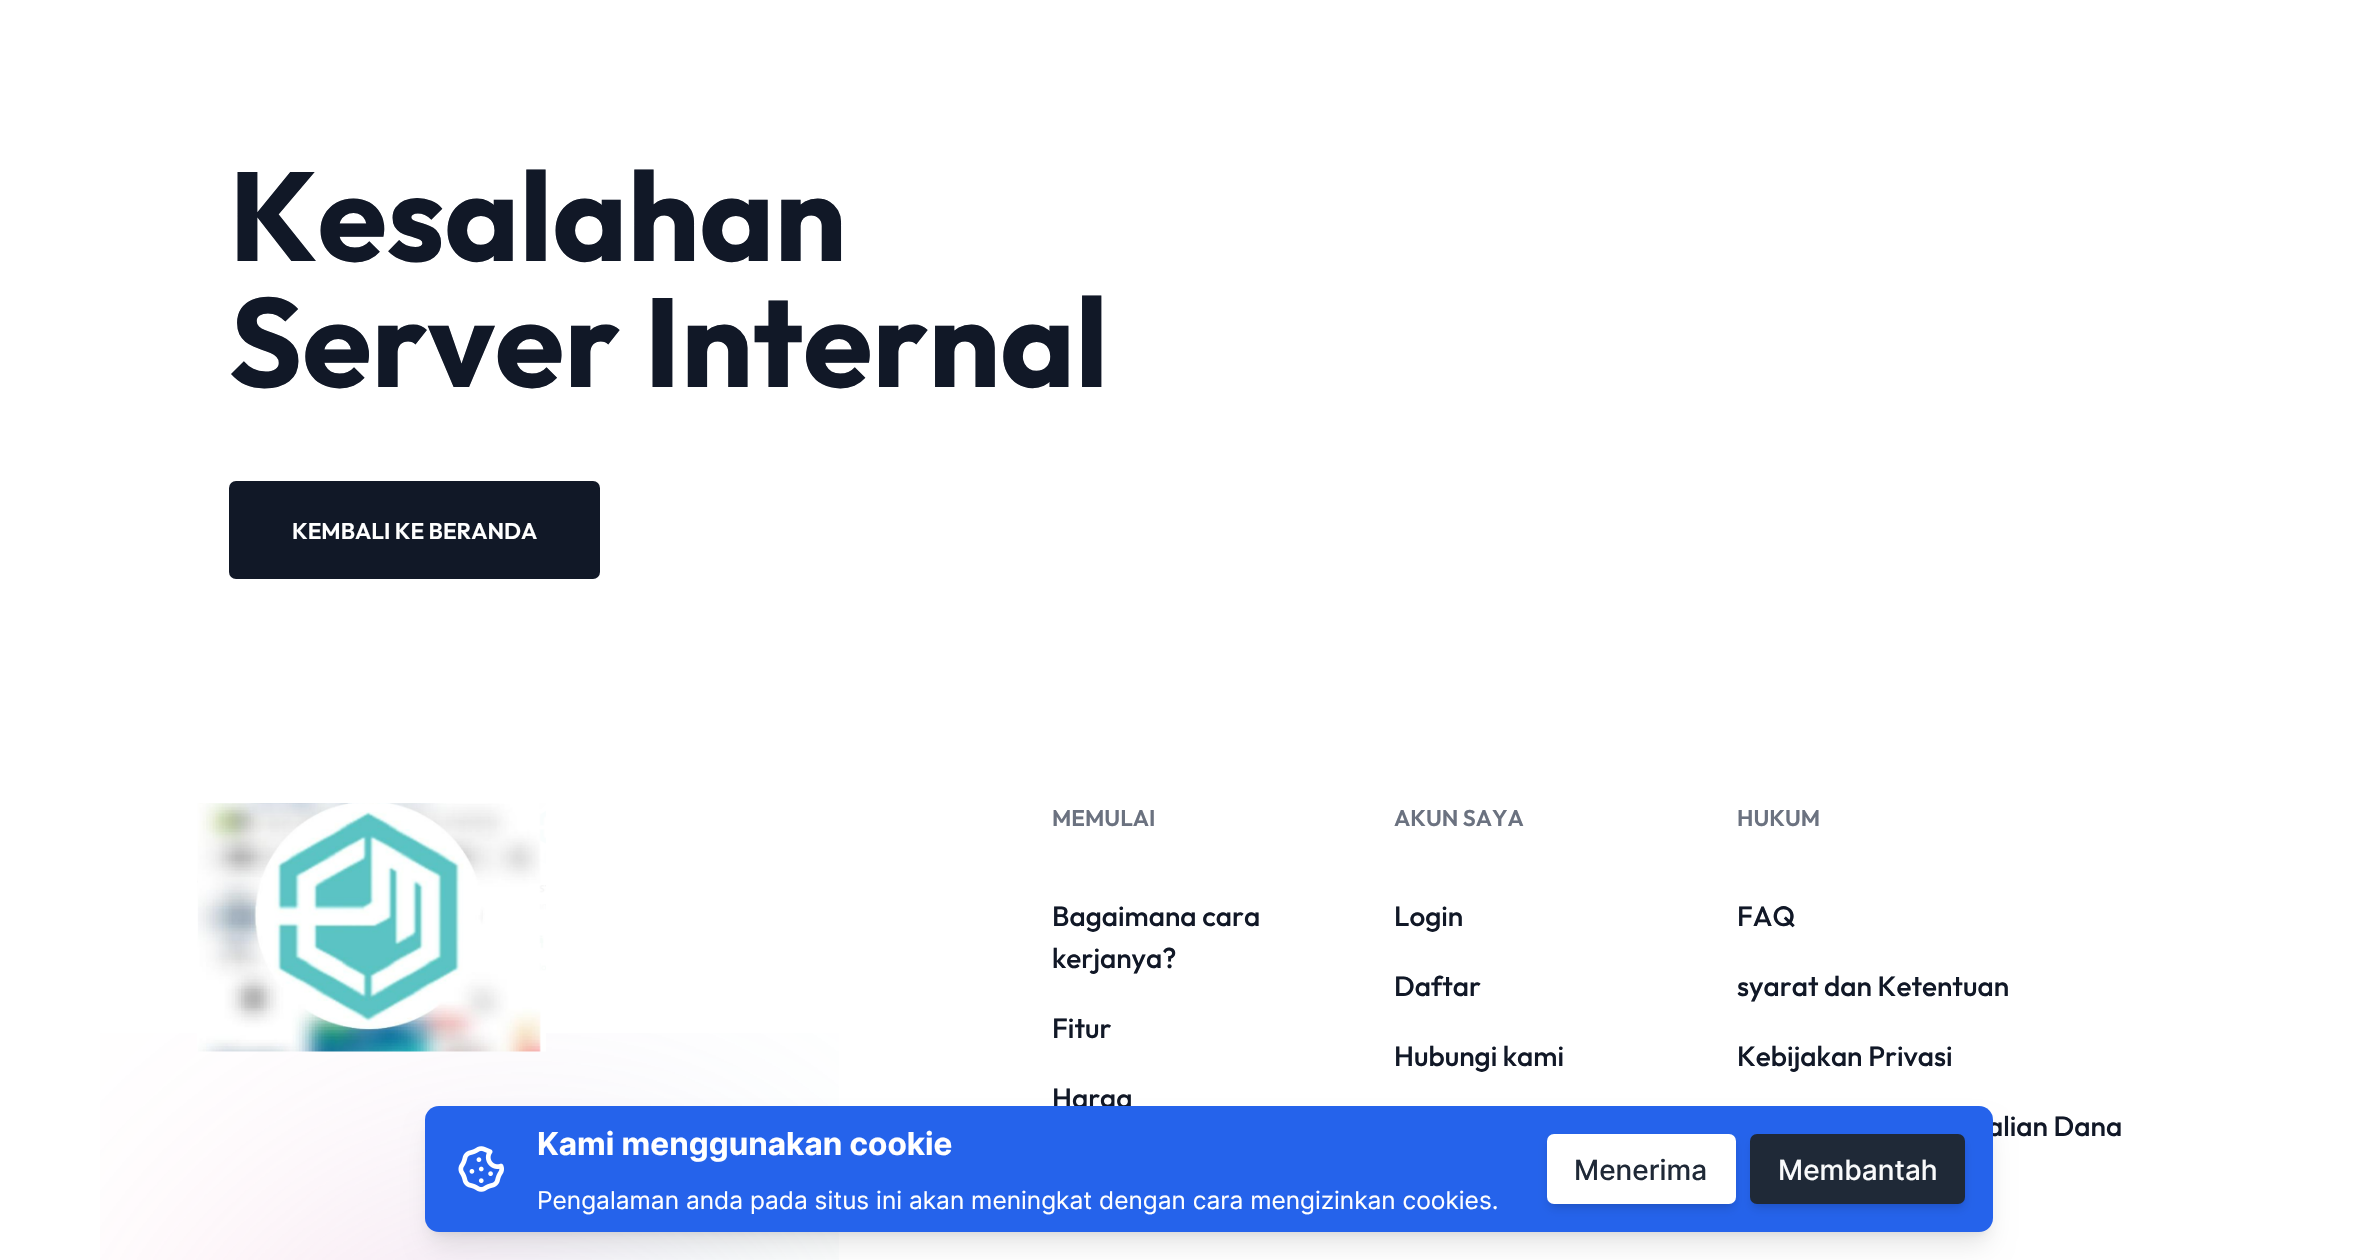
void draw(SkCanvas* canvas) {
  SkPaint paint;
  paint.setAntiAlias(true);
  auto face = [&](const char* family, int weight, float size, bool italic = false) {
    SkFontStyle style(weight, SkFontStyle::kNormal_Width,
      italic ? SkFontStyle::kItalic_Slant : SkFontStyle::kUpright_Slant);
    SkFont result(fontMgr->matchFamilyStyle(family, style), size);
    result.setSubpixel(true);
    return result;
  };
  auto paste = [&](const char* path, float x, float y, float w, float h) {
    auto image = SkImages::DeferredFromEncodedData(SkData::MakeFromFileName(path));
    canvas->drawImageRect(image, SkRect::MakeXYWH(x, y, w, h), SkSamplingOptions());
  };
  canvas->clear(0xffffffff);
  paint.setColor(0xff111827);
  canvas->drawRoundRect(SkRect::MakeXYWH(229, 481, 371, 98), 7, 7, paint);
  paste("img/2.png", 100, 1033, 739, 227);
  paint.setColor(0x1a000000);
  paint.setMaskFilter(SkMaskFilter::MakeBlur(kNormal_SkBlurStyle, 5));
  canvas->drawRoundRect(SkRect::MakeXYWH(432, 1120, 1554, 112), 7, 7, paint);
  paint.setMaskFilter(nullptr);
  paint.setMaskFilter(SkMaskFilter::MakeBlur(kNormal_SkBlurStyle, 13));
  canvas->drawRoundRect(SkRect::MakeXYWH(431, 1129, 1557, 115), 9, 9, paint);
  paint.setMaskFilter(nullptr);
  paste("img/3.png", 197, 803, 349, 249);
  auto f0 = face("Outfit", 700, 126);
  paint.setColor(0xff111827);
  canvas->drawString("Kesalahan", 229, 261, f0, paint);
  canvas->drawString("Server Internal", 229, 387, f0, paint);
  auto f1 = face("Outfit", 600, 22.75f);
  paint.setColor(0xffffffff);
  canvas->drawString("KEMBALI KE BERANDA", 292, 539, f1, paint);
  paint.setColor(0xff6b7280);
  canvas->drawString("MEMULAI", 1052, 826, f1, paint);
  auto f2 = face("Outfit", 500, 28);
  paint.setColor(0xff111827);
  {
    const struct { const char* s; float x, y; } items[] = {
      {"Bagaimana cara", 1052, 926},
      {"kerjanya?", 1052, 968},
      {"Fitur", 1052, 1038},
      {"Harga", 1052, 1108},
    };
    for (auto [s, x, y] : items) {
      canvas->drawString(s, x, y, f2, paint);
    }
  }
  paint.setColor(0xff6b7280);
  canvas->drawString("AKUN SAYA", 1394, 826, f1, paint);
  paint.setColor(0xff111827);
  {
    const struct { const char* s; float x, y; } items[] = {
      {"Login", 1394, 926},
      {"Daftar", 1394, 996},
      {"Hubungi kami", 1394, 1066},
    };
    for (auto [s, x, y] : items) {
      canvas->drawString(s, x, y, f2, paint);
    }
  }
  paint.setColor(0xff6b7280);
  canvas->drawString("HUKUM", 1737, 826, f1, paint);
  paint.setColor(0xff111827);
  {
    const struct { const char* s; float x, y; } items[] = {
      {"FAQ", 1737, 926},
      {"syarat dan Ketentuan", 1737, 996},
      {"Kebijakan Privasi", 1737, 1066},
      {"alian Dana", 1987, 1136},
    };
    for (auto [s, x, y] : items) {
      canvas->drawString(s, x, y, f2, paint);
    }
  }
  paint.setColor(0xff2563eb);
  canvas->drawRoundRect(SkRect::MakeXYWH(425, 1106, 1568, 126), 14, 14, paint);
  paste("img/1.png", 458, 1146, 46, 46);
  paint.setColor(0x1a000000);
  paint.setMaskFilter(SkMaskFilter::MakeBlur(kNormal_SkBlurStyle, 5));
  canvas->drawRoundRect(SkRect::MakeXYWH(1752, 1143, 212, 66), 5, 5, paint);
  paint.setMaskFilter(nullptr);
  paint.setMaskFilter(SkMaskFilter::MakeBlur(kNormal_SkBlurStyle, 3.5f));
  canvas->drawRoundRect(SkRect::MakeXYWH(1754, 1141, 208, 63), 4, 4, paint);
  paint.setMaskFilter(nullptr);
  paint.setColor(0xff1f2937);
  canvas->drawRoundRect(SkRect::MakeXYWH(1750, 1134, 215, 70), 7, 7, paint);
  auto f3 = face("Inter", 500, 28);
  paint.setColor(0xfff9fafb);
  canvas->drawString("Membantah", 1778, 1180, f3, paint);
  paint.setColor(0x1a000000);
  paint.setMaskFilter(SkMaskFilter::MakeBlur(kNormal_SkBlurStyle, 5));
  canvas->drawRoundRect(SkRect::MakeXYWH(1549, 1143, 185, 66), 5, 5, paint);
  paint.setMaskFilter(nullptr);
  paint.setMaskFilter(SkMaskFilter::MakeBlur(kNormal_SkBlurStyle, 3.5f));
  canvas->drawRoundRect(SkRect::MakeXYWH(1551, 1141, 182, 63), 4, 4, paint);
  paint.setMaskFilter(nullptr);
  paint.setColor(0xffffffff);
  canvas->drawRoundRect(SkRect::MakeXYWH(1547, 1134, 189, 70), 7, 7, paint);
  paint.setColor(0xff1f2937);
  canvas->drawString("Menerima", 1574, 1180, f3, paint);
  auto f4 = face("Inter", 400, 24.5f);
  paint.setColor(0xffffffff);
  canvas->drawString("Pengalaman anda pada situs ini akan meningkat dengan cara mengizinkan cookies.", 537, 1209, f4, paint);
  auto f5 = face("Inter", 700, 31.5f);
  canvas->drawString("Kami menggunakan cookie", 537, 1155, f5, paint);
}
